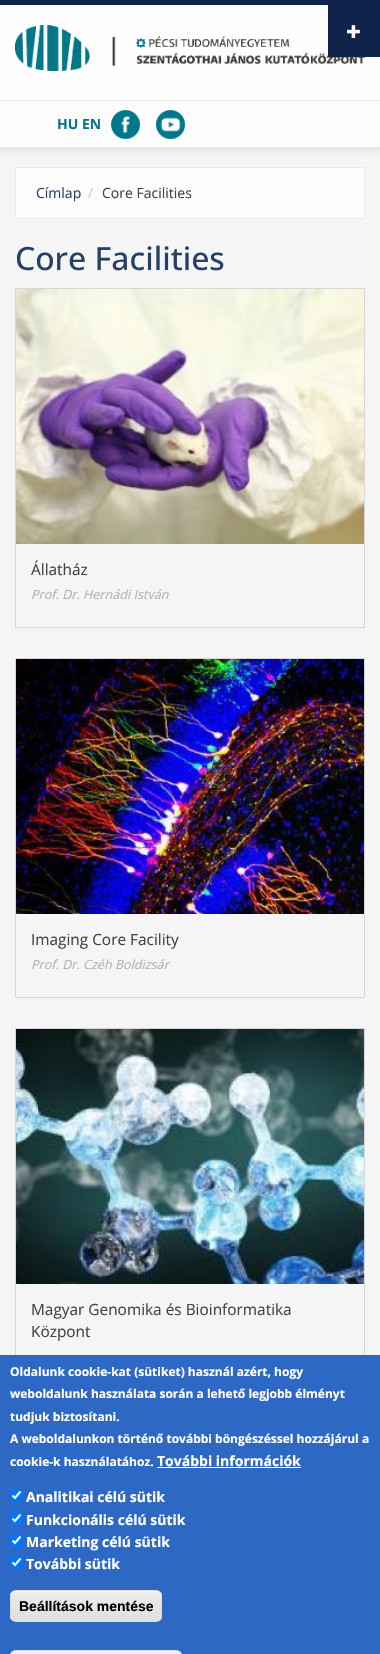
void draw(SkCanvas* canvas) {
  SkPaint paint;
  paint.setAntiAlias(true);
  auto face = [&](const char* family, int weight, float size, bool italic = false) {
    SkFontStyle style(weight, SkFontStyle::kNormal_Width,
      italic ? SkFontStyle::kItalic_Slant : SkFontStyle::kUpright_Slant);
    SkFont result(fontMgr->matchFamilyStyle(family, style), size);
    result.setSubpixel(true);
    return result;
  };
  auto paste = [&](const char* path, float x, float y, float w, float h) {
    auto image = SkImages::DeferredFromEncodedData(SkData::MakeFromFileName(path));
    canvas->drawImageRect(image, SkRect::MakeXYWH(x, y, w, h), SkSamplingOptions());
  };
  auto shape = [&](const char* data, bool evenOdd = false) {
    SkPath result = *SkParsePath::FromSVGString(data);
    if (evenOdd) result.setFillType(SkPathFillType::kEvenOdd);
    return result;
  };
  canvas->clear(0xfff5f5f5);
  paint.setColor(0xff10234b);
  canvas->drawRect(SkRect::MakeXYWH(0, 0, 380, 5), paint);
  paint.setColor(0xfffefefe);
  canvas->drawRect(SkRect::MakeXYWH(0, 5, 380, 95), paint);
  paste("img/2.png", 15, 25, 350, 46);
  paint.setColor(0xff10234b);
  canvas->drawRect(SkRect::MakeXYWH(328, 5, 52, 52), paint);
  paste("img/1.png", 347, 25, 13, 13);
  paint.setColor(0xffeaeaea);
  canvas->drawRect(SkRect::MakeXYWH(0, 100, 380, 1), paint);
  paint.setColor(0x12000000);
  paint.setMaskFilter(SkMaskFilter::MakeBlur(kNormal_SkBlurStyle, 2));
  canvas->drawRect(SkRect::MakeXYWH(0, 105, 380, 46), paint);
  paint.setMaskFilter(nullptr);
  paint.setColor(0xfffcfcfc);
  canvas->drawRect(SkRect::MakeXYWH(0, 101, 380, 46), paint);
  paste("img/3.png", 111, 110, 29, 29);
  paste("img/4.png", 156, 110, 29, 29);
  canvas->drawRect(SkRect::MakeXYWH(15.5f, 167.5f, 349, 51), paint);
  paint.setStroke(true);
  paint.setStrokeWidth(1);
  paint.setColor(0xffeaeaea);
  canvas->drawRect(SkRect::MakeXYWH(15.5f, 167.5f, 349, 51), paint);
  paint.setColor(0xffd7d5d5);
  canvas->drawRect(SkRect::MakeXYWH(15.5f, 288.5f, 349, 339), paint);
  paste("img/5.png", 16, 289, 348, 255);
  canvas->drawRect(SkRect::MakeXYWH(15.5f, 658.5f, 349, 339), paint);
  paste("img/6.png", 16, 659, 348, 255);
  canvas->drawRect(SkRect::MakeXYWH(15.5f, 1028.5f, 349, 361), paint);
  paste("img/7.png", 16, 1029, 348, 255);
  paint.setStroke(false);
  paint.setColor(0xff2d68c4);
  canvas->drawRect(SkRect::MakeXYWH(0, 1355, 380, 299), paint);
  paint.setColor(0xffffffff);
  canvas->drawRect(SkRect::MakeXYWH(157, 1467, 144, 1), paint);
  paint.setColor(0xff0075ff);
  canvas->drawRoundRect(SkRect::MakeXYWH(10, 1489, 13, 13), 2, 2, paint);
  paint.setStroke(true);
  paint.setStrokeWidth(2.1f);
  paint.setColor(0xffffffff);
  canvas->drawPath(shape("M12.5 1495.5L15 1498L20.5 1491.5"), paint);
  paint.setStroke(false);
  paint.setColor(0xff0075ff);
  canvas->drawRoundRect(SkRect::MakeXYWH(10, 1512, 13, 13), 2, 2, paint);
  paint.setStroke(true);
  paint.setColor(0xffffffff);
  canvas->drawPath(shape("M12.5 1518.5L15 1521L20.5 1514.5"), paint);
  paint.setStroke(false);
  paint.setColor(0xff0075ff);
  canvas->drawRoundRect(SkRect::MakeXYWH(10, 1534, 13, 13), 2, 2, paint);
  paint.setStroke(true);
  paint.setColor(0xffffffff);
  canvas->drawPath(shape("M12.5 1540.5L15 1543L20.5 1536.5"), paint);
  paint.setStroke(false);
  paint.setColor(0xff0075ff);
  canvas->drawRoundRect(SkRect::MakeXYWH(10, 1556, 13, 13), 2, 2, paint);
  paint.setStroke(true);
  paint.setColor(0xffffffff);
  canvas->drawPath(shape("M12.5 1562.5L15 1565L20.5 1558.5"), paint);
  canvas->save();
  canvas->clipPath(shape("M16 1590H156C159.5 1590 162 1592.5 162 1596V1616C162 1619.5 159.5 1622 156 1622H16C12.5 1622 10 1619.5 10 1616V1596C10 1592.5 12.5 1590 16 1590Z"), true);
  paint.setStroke(false);
  {
    const SkColor colors[] = {0xffededed, 0xffdfdfdf};
    const float stops[] = {0.05f, 1};
    const SkPoint ends[] = {{86, 1591}, {86, 1621}};
    paint.setShader(SkGradientShader::MakeLinear(ends, colors, stops, 2, SkTileMode::kClamp));
    paint.setAlpha(255);
  }
  canvas->drawRect(SkRect::MakeXYWH(10, 1591, 152, 30), paint);
  canvas->restore();
  paint.setShader(nullptr);
  paint.setColor(0xffffffff);
  canvas->drawPath(shape("M16 1592H156C159 1592 161 1594 161 1597V1596C161 1593 159 1591 156 1591H16C13 1591 11 1593 11 1596V1597C11 1594 13 1592 16 1592Z"), paint);
  paint.setStroke(true);
  paint.setStrokeWidth(1);
  paint.setColor(0xffdcdcdc);
  canvas->drawRoundRect(SkRect::MakeXYWH(10.5f, 1590.5f, 151, 31), 5.5f, 5.5f, paint);
  canvas->save();
  canvas->clipPath(shape("M16 1650H176C179.5 1650 182 1652.5 182 1656V1677C182 1680.5 179.5 1683 176 1683H16C12.5 1683 10 1680.5 10 1677V1656C10 1652.5 12.5 1650 16 1650Z"), true);
  paint.setStroke(false);
  {
    const SkColor colors[] = {0xffededed, 0xffdfdfdf};
    const float stops[] = {0.05f, 1};
    const SkPoint ends[] = {{96, 1651}, {96, 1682}};
    paint.setShader(SkGradientShader::MakeLinear(ends, colors, stops, 2, SkTileMode::kClamp));
    paint.setAlpha(255);
  }
  canvas->drawRect(SkRect::MakeXYWH(10, 1651, 172, 3), paint);
  canvas->restore();
  paint.setShader(nullptr);
  paint.setColor(0xffffffff);
  canvas->drawPath(shape("M16 1652H176C179 1652 181 1654 181 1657V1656C181 1653 179 1651 176 1651H16C13 1651 11 1653 11 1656V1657C11 1654 13 1652 16 1652Z"), paint);
  paint.setStroke(true);
  paint.setColor(0xffdcdcdc);
  canvas->drawRoundRect(SkRect::MakeXYWH(10.5f, 1650.5f, 171, 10), 5.5f, 5.5f, paint);
  auto f0 = face("Open Sans", 700, 14);
  paint.setStroke(false);
  paint.setColor(0xff077689);
  canvas->drawString("HU EN", 57, 129, f0, paint);
  auto f1 = face("Open Sans", 400, 14);
  paint.setColor(0xff264165);
  canvas->drawString("Címlap", 36, 198, f1, paint);
  paint.setColor(0xffcccccc);
  canvas->drawString("/", 88, 198, f1, paint);
  paint.setColor(0xff444444);
  canvas->drawString("Core Facilities", 102, 198, f1, paint);
  auto f2 = face("Open Sans", 500, 32);
  paint.setColor(0xff264165);
  canvas->drawString("Core Facilities", 15, 270, f2, paint);
  auto f3 = face("Open Sans", 400, 15.4f);
  paint.setColor(0xff444444);
  canvas->drawString("Állatház", 31, 575, f3, paint);
  auto f4 = face("Open Sans", 400, 12.6f, true);
  paint.setColor(0xffb3b1b1);
  canvas->drawString("Prof. Dr. Hernádi István", 31, 599, f4, paint);
  paint.setColor(0xff444444);
  canvas->drawString("Imaging Core Facility", 31, 945, f3, paint);
  paint.setColor(0xffb3b1b1);
  canvas->drawString("Prof. Dr. Czéh Boldizsár", 31, 969, f4, paint);
  paint.setColor(0xff444444);
  canvas->drawString("Magyar Genomika és Bioinformatika", 31, 1315, f3, paint);
  canvas->drawString("Központ", 31, 1337, f3, paint);
  auto f5 = face("Open Sans", 700, 12);
  paint.setColor(0xffffffff);
  {
    const struct { const char* s; float x, y; } items[] = {
      {"Oldalunk cookie-kat (sütiket) használ azért, hogy", 10, 1376},
      {"weboldalunk használata során a lehető legjobb élményt", 10, 1398},
      {"tudjuk biztosítani.", 10, 1421},
      {"A weboldalunkon történő további böngészéssel hozzájárul a", 10, 1443},
      {"cookie-k használatához.", 10, 1466},
    };
    for (auto [s, x, y] : items) {
      canvas->drawString(s, x, y, f5, paint);
    }
  }
  {
    const struct { const char* s; float x, y; } items[] = {
      {"További információk", 157, 1466},
      {"Analitikai célú sütik", 26, 1502},
      {"Funkcionális célú sütik", 26, 1525},
      {"Marketing célú sütik", 26, 1547},
      {"További sütik", 26, 1569},
    };
    for (auto [s, x, y] : items) {
      canvas->drawString(s, x, y, f0, paint);
    }
  }
  auto f6 = face("Liberation Sans", 700, 14);
  paint.setColor(0xff000000);
  canvas->drawString("Beállítások mentése", 19, 1611, f6, paint);
}
